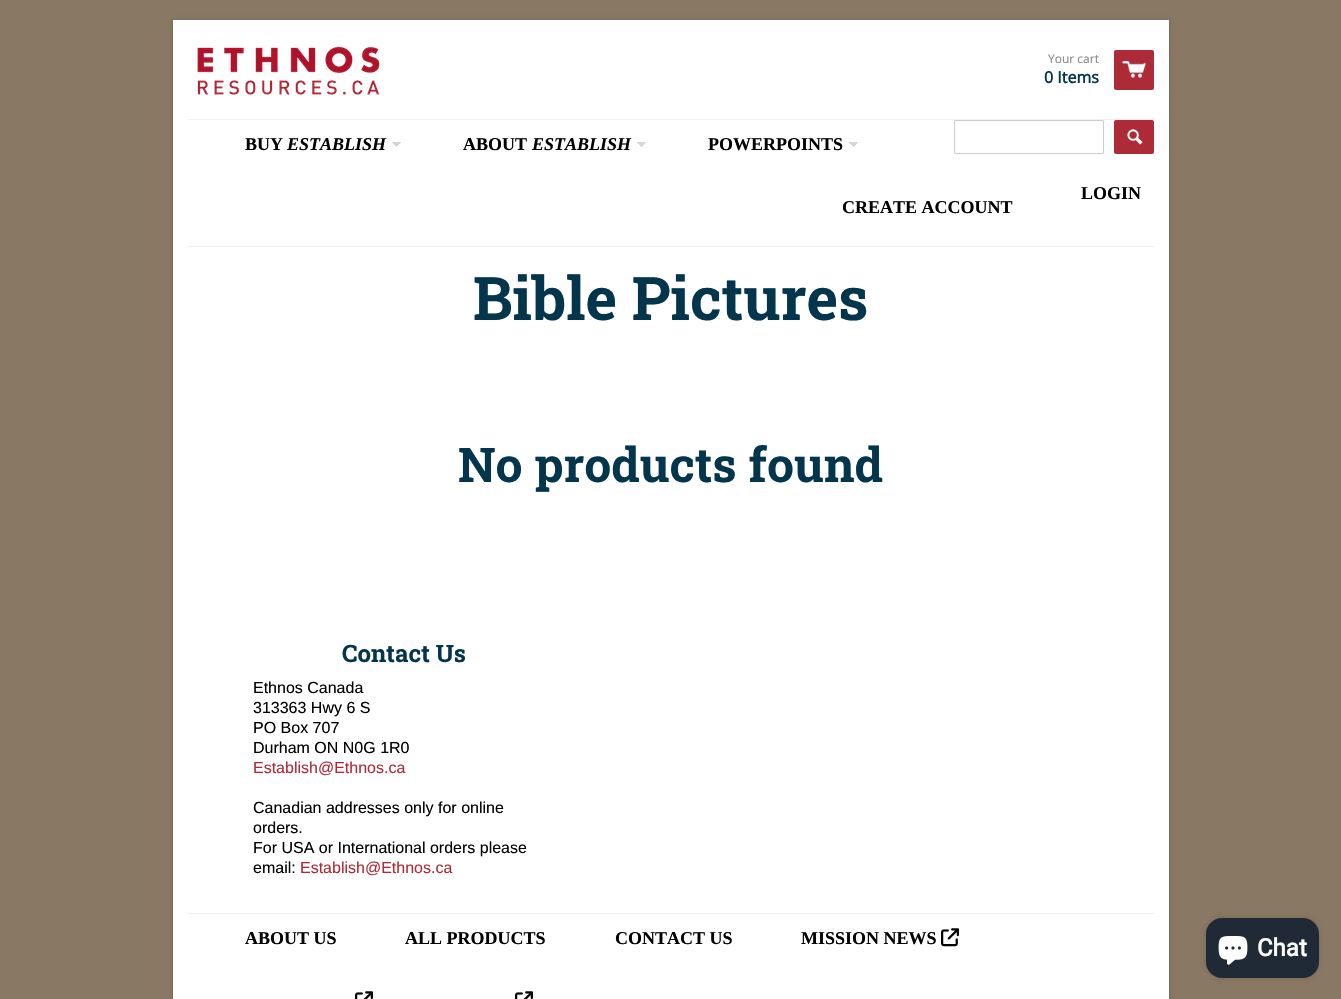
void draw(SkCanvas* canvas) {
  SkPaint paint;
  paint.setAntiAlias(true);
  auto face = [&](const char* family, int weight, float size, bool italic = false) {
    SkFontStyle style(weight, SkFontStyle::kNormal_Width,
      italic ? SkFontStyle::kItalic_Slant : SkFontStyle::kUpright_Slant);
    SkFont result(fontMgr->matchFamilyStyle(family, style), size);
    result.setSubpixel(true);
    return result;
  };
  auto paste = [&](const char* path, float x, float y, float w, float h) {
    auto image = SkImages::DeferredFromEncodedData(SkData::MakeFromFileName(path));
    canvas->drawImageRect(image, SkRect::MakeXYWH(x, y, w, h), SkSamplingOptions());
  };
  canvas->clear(0xff897863);
  paint.setColor(0x33000000);
  paint.setMaskFilter(SkMaskFilter::MakeBlur(kNormal_SkBlurStyle, 2));
  canvas->drawRect(SkRect::MakeXYWH(173, 20, 996, 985), paint);
  paint.setMaskFilter(nullptr);
  paint.setColor(0xffffffff);
  canvas->drawRect(SkRect::MakeXYWH(173, 20, 996, 979), paint);
  paste("img/1.png", 197, 46, 183, 51);
  paint.setColor(0xffac2b37);
  canvas->drawRoundRect(SkRect::MakeXYWH(1114, 50, 40, 40), 2, 2, paint);
  paste("img/2.png", 1122, 61, 24, 17);
  paint.setColor(0xfff0f0f0);
  canvas->drawRect(SkRect::MakeXYWH(188, 119, 966, 1), paint);
  canvas->drawRect(SkRect::MakeXYWH(188, 246, 966, 1), paint);
  paste("img/3.png", 392, 142, 9, 5);
  paste("img/3.png", 637, 142, 9, 5);
  paste("img/3.png", 849, 142, 9, 5);
  paint.setStroke(true);
  paint.setStrokeWidth(1);
  paint.setColor(0xffcccccc);
  canvas->drawRoundRect(SkRect::MakeXYWH(954.5f, 120.5f, 149, 33), 0.5f, 0.5f, paint);
  paint.setStroke(false);
  paint.setColor(0xffac2b37);
  canvas->drawRoundRect(SkRect::MakeXYWH(1114, 120, 40, 34), 2, 2, paint);
  paste("img/4.png", 1127, 129, 16, 16);
  paint.setColor(0xfff0f0f0);
  canvas->drawRect(SkRect::MakeXYWH(188, 913, 966, 1), paint);
  paste("img/5.png", 941, 928, 18, 19);
  paste("img/6.png", 355, 991, 18, 8);
  paste("img/6.png", 515, 991, 18, 8);
  paint.setColor(0x26000000);
  paint.setMaskFilter(SkMaskFilter::MakeBlur(kNormal_SkBlurStyle, 2.5f));
  canvas->drawRoundRect(SkRect::MakeXYWH(1206, 918, 113, 60), 16, 16, paint);
  paint.setMaskFilter(nullptr);
  paint.setColor(0xff202a36);
  canvas->drawRoundRect(SkRect::MakeXYWH(1206, 918, 113, 60), 16, 16, paint);
  paste("img/7.png", 1218, 936, 30, 29);
  auto f0 = face("Open Sans", 400, 12);
  paint.setColor(0xff888888);
  canvas->drawString("Your cart", 1048, 63, f0, paint);
  auto f1 = face("Open Sans", 700, 16);
  paint.setColor(0xff03354c);
  canvas->drawString("0 Items", 1044, 83, f1, paint);
  auto f2 = face("Liberation Serif", 700, 18);
  paint.setColor(0xff000000);
  canvas->drawString("BUY", 245, 150, f2, paint);
  auto f3 = face("Liberation Serif", 700, 18, true);
  canvas->drawString("ESTABLISH", 287, 150, f3, paint);
  canvas->drawString("ABOUT", 463, 150, f2, paint);
  canvas->drawString("ESTABLISH", 532, 150, f3, paint);
  {
    const struct { const char* s; float x, y; } items[] = {
      {"POWERPOINTS", 708, 150},
      {"LOGIN", 1081, 199},
      {"CREATE ACCOUNT", 842, 213},
    };
    for (auto [s, x, y] : items) {
      canvas->drawString(s, x, y, f2, paint);
    }
  }
  auto f4 = face("Roboto Slab", 700, 60);
  paint.setColor(0xff03354c);
  canvas->drawString("Bible Pictures", 473, 320, f4, paint);
  auto f5 = face("Roboto Slab", 700, 48);
  canvas->drawString("No products found", 458, 482, f5, paint);
  auto f6 = face("Roboto Slab", 700, 24);
  canvas->drawString("Contact Us", 342, 662, f6, paint);
  auto f7 = face("Liberation Sans", 400, 16);
  paint.setColor(0xff000000);
  {
    const struct { const char* s; float x, y; } items[] = {
      {"Ethnos Canada", 253, 693},
      {"313363 Hwy 6 S", 253, 713},
      {"PO Box 707", 253, 733},
      {"Durham ON N0G 1R0", 253, 753},
    };
    for (auto [s, x, y] : items) {
      canvas->drawString(s, x, y, f7, paint);
    }
  }
  paint.setColor(0xffac2b37);
  canvas->drawString("Establish@Ethnos.ca", 253, 773, f7, paint);
  paint.setColor(0xff000000);
  {
    const struct { const char* s; float x, y; } items[] = {
      {"Canadian addresses only for online", 253, 813},
      {"orders.", 253, 833},
      {"For USA or International orders please", 253, 853},
      {"email:", 253, 873},
    };
    for (auto [s, x, y] : items) {
      canvas->drawString(s, x, y, f7, paint);
    }
  }
  paint.setColor(0xffac2b37);
  canvas->drawString("Establish@Ethnos.ca", 300, 873, f7, paint);
  paint.setColor(0xff000000);
  {
    const struct { const char* s; float x, y; } items[] = {
      {"ABOUT US", 245, 944},
      {"ALL PRODUCTS", 405, 944},
      {"CONTACT US", 615, 944},
      {"MISSION NEWS", 801, 944},
    };
    for (auto [s, x, y] : items) {
      canvas->drawString(s, x, y, f2, paint);
    }
  }
  auto f8 = face("Roboto", 700, 24);
  paint.setColor(0xffffffff);
  canvas->drawString("Chat", 1257, 956, f8, paint);
}
